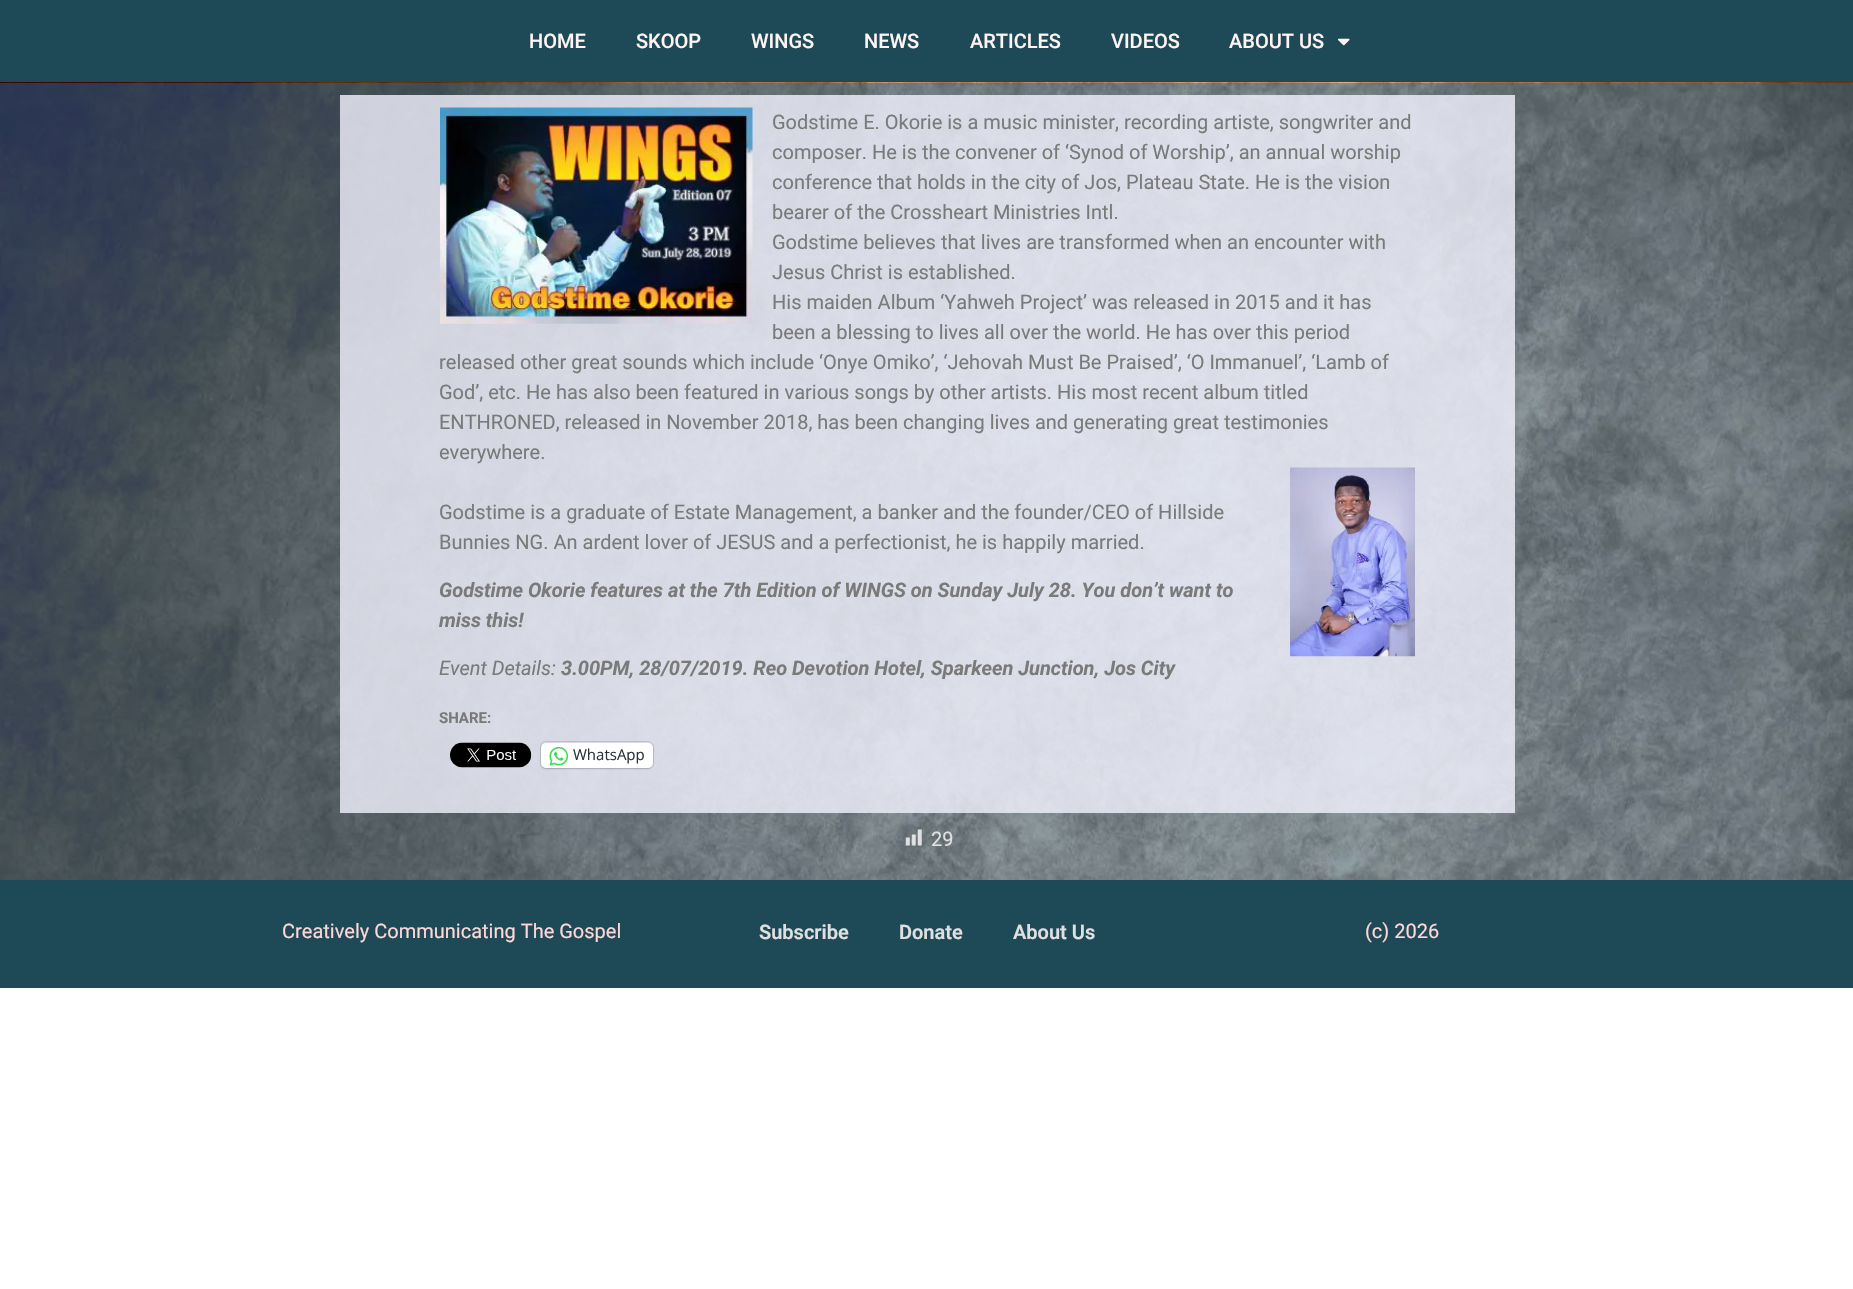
void draw(SkCanvas* canvas) {
  SkPaint paint;
  paint.setAntiAlias(true);
  auto face = [&](const char* family, int weight, float size, bool italic = false) {
    SkFontStyle style(weight, SkFontStyle::kNormal_Width,
      italic ? SkFontStyle::kItalic_Slant : SkFontStyle::kUpright_Slant);
    SkFont result(fontMgr->matchFamilyStyle(family, style), size);
    result.setSubpixel(true);
    return result;
  };
  auto paste = [&](const char* path, float x, float y, float w, float h) {
    auto image = SkImages::DeferredFromEncodedData(SkData::MakeFromFileName(path));
    canvas->drawImageRect(image, SkRect::MakeXYWH(x, y, w, h), SkSamplingOptions());
  };
  canvas->clear(0xffffffff);
  paint.setColor(0xff1e4a57);
  canvas->drawRect(SkRect::MakeXYWH(0, 0, 1853, 82), paint);
  paste("img/1.png", 1338, 38, 12, 8);
  paste("img/2.png", 0, 82, 1853, 798);
  paint.setColor(0xccf2f2ff);
  canvas->drawRect(SkRect::MakeXYWH(340, 95, 1175, 718), paint);
  paste("img/3.png", 440, 107, 313, 217);
  paste("img/4.png", 1290, 467, 125, 190);
  paste("img/5.png", 450, 742, 82, 26);
  paint.setStroke(true);
  paint.setStrokeWidth(1);
  paint.setColor(0x1f000000);
  canvas->drawRoundRect(SkRect::MakeXYWH(540.5f, 741.5f, 113, 27), 5.5f, 5.5f, paint);
  paint.setStroke(false);
  paint.setMaskFilter(SkMaskFilter::MakeBlur(kNormal_SkBlurStyle, 1));
  canvas->drawRoundRect(SkRect::MakeXYWH(541, 744, 112, 25), 5, 5, paint);
  paint.setMaskFilter(nullptr);
  paint.setColor(0xffffffff);
  canvas->drawRoundRect(SkRect::MakeXYWH(541, 743, 112, 25), 5, 5, paint);
  paste("img/6.png", 549, 746, 20, 20);
  paste("img/7.png", 905, 829, 17, 17);
  paint.setColor(0xff1e4a57);
  canvas->drawRect(SkRect::MakeXYWH(0, 880, 1853, 108), paint);
  auto f0 = face("Roboto", 500, 20);
  paint.setColor(0xfffff4f4);
  {
    const struct { const char* s; float x, y; } items[] = {
      {"HOME", 529, 48},
      {"SKOOP", 636, 48},
      {"WINGS", 751, 48},
      {"NEWS", 864, 48},
      {"ARTICLES", 970, 48},
      {"VIDEOS", 1111, 48},
      {"ABOUT US", 1229, 48},
    };
    for (auto [s, x, y] : items) {
      canvas->drawString(s, x, y, f0, paint);
    }
  }
  auto f1 = face("Roboto", 400, 20);
  paint.setColor(0xff7a7a7a);
  {
    const struct { const char* s; float x, y; } items[] = {
      {"Godstime E. Okorie is a music minister, recording artiste, songwriter and", 772, 129},
      {"composer. He is the convener of ‘Synod of Worship’, an annual worship", 772, 159},
      {"conference that holds in the city of Jos, Plateau State. He is the vision", 772, 189},
      {"bearer of the Crossheart Ministries Intl.", 772, 219},
      {"Godstime believes that lives are transformed when an encounter with", 772, 249},
      {"Jesus Christ is established.", 772, 279},
      {"His maiden Album ‘Yahweh Project’ was released in 2015 and it has", 772, 309},
      {"been a blessing to lives all over the world. He has over this period", 772, 339},
      {"released other great sounds which include ‘Onye Omiko’, ‘Jehovah Must Be Praised’, ‘O Immanuel’, ‘Lamb of", 439, 369},
      {"God’, etc. He has also been featured in various songs by other artists. His most recent album titled", 439, 399},
      {"ENTHRONED, released in November 2018, has been changing lives and generating great testimonies", 439, 429},
      {"everywhere.", 439, 459},
      {"Godstime is a graduate of Estate Management, a banker and the founder/CEO of Hillside", 439, 519},
      {"Bunnies NG. An ardent lover of JESUS and a perfectionist, he is happily married.", 439, 549},
    };
    for (auto [s, x, y] : items) {
      canvas->drawString(s, x, y, f1, paint);
    }
  }
  auto f2 = face("Roboto", 700, 20, true);
  canvas->drawString("Godstime Okorie features at the 7th Edition of WINGS on Sunday July 28. You don’t want to", 439, 597, f2, paint);
  canvas->drawString("miss this!", 439, 627, f2, paint);
  auto f3 = face("Roboto", 400, 20, true);
  canvas->drawString("Event Details:", 439, 675, f3, paint);
  canvas->drawString("3.00PM, 28/07/2019. Reo Devotion Hotel, Sparkeen Junction, Jos City", 561, 675, f2, paint);
  auto f4 = face("Roboto", 700, 15);
  canvas->drawString("SHARE:", 439, 723, f4, paint);
  auto f5 = face("Open Sans", 400, 15);
  paint.setColor(0xff2c3338);
  canvas->drawString("WhatsApp", 573, 760, f5, paint);
  paint.setColor(0xffe0e0e0);
  canvas->drawString("29", 931, 846, f1, paint);
  paint.setColor(0xffffd7d7);
  canvas->drawString("Creatively Communicating The Gospel", 282, 938, f1, paint);
  auto f6 = face("Roboto", 600, 20);
  paint.setColor(0xffe0e0e0);
  {
    const struct { const char* s; float x, y; } items[] = {
      {"Subscribe", 759, 939},
      {"Donate", 899, 939},
      {"About Us", 1013, 939},
    };
    for (auto [s, x, y] : items) {
      canvas->drawString(s, x, y, f6, paint);
    }
  }
  paint.setColor(0xffffd7d7);
  canvas->drawString("(c) 2026", 1365, 938, f1, paint);
}
